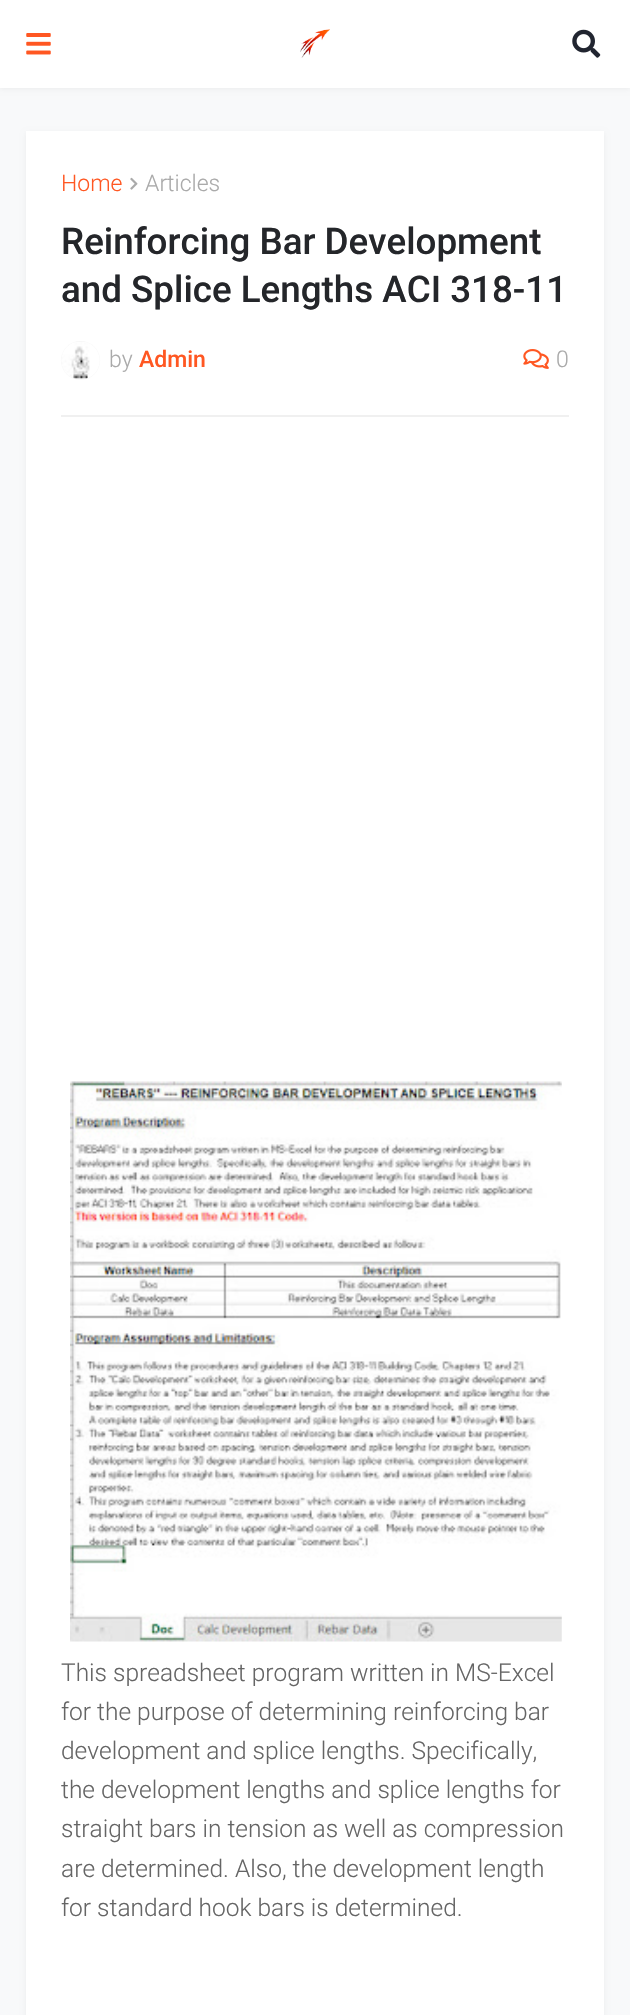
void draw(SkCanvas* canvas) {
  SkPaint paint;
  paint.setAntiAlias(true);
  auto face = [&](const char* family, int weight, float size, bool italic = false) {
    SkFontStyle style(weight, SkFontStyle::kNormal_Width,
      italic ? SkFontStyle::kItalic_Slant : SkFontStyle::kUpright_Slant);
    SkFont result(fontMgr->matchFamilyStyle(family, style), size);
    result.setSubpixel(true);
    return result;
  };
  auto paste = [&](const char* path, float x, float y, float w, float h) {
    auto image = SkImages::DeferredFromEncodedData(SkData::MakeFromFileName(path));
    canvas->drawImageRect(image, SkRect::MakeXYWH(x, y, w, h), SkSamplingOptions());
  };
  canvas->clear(0xfff8f9fa);
  paint.setColor(0x0d000000);
  paint.setMaskFilter(SkMaskFilter::MakeBlur(kNormal_SkBlurStyle, 2.5f));
  canvas->drawRect(SkRect::MakeXYWH(0, 2, 630, 87), paint);
  paint.setMaskFilter(nullptr);
  paint.setColor(0xffffffff);
  canvas->drawRect(SkRect::MakeXYWH(0, 0, 630, 88), paint);
  paste("img/1.png", 26, 33, 25, 22);
  paste("img/2.png", 300, 29, 30, 29);
  paste("img/3.png", 572, 29, 29, 29);
  paint.setColor(0x0d000000);
  paint.setMaskFilter(SkMaskFilter::MakeBlur(kNormal_SkBlurStyle, 2.5f));
  canvas->drawRect(SkRect::MakeXYWH(26, 133, 578, 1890), paint);
  paint.setMaskFilter(nullptr);
  paint.setColor(0xffffffff);
  canvas->drawRect(SkRect::MakeXYWH(26, 131, 578, 1884), paint);
  paint.setColor(0xfff0f0f0);
  canvas->drawRect(SkRect::MakeXYWH(61, 415, 508, 2), paint);
  paste("img/4.png", 130, 177, 8, 13);
  paint.setColor(0xfff7f7f7);
  canvas->drawCircle(80.5f, 360.5f, 19.5f, paint);
  paste("img/5.png", 61, 342, 39, 37);
  paste("img/6.png", 523, 349, 26, 20);
  paste("img/7.png", 70, 1081, 492, 561);
  auto f0 = face("Roboto", 300, 23);
  paint.setColor(0xffff5722);
  canvas->drawString("Home", 61, 191, f0, paint);
  paint.setColor(0xffaaaaaa);
  canvas->drawString("Articles", 145, 191, f0, paint);
  auto f1 = face("Roboto", 500, 36.75f);
  paint.setColor(0xff24262a);
  canvas->drawString("Reinforcing Bar Development", 61, 254, f1, paint);
  canvas->drawString("and Splice Lengths ACI 318-11", 61, 302, f1, paint);
  paint.setColor(0xffaaaaaa);
  canvas->drawString("by", 109, 367, f0, paint);
  auto f2 = face("Roboto", 500, 23);
  paint.setColor(0xffff5722);
  canvas->drawString("Admin", 139, 367, f2, paint);
  paint.setColor(0xffaaaaaa);
  canvas->drawString("0", 556, 367, f0, paint);
  auto f3 = face("Roboto", 300, 24.5f);
  paint.setColor(0xff656565);
  {
    const struct { const char* s; float x, y; } items[] = {
      {"This spreadsheet program written in MS-Excel", 61, 1681},
      {"for the purpose of determining reinforcing bar", 61, 1720},
      {"development and splice lengths. Specifically,", 61, 1759},
      {"the development lengths and splice lengths for", 61, 1798},
      {"straight bars in tension as well as compression", 61, 1837},
      {"are determined. Also, the development length", 61, 1877},
      {"for standard hook bars is determined.", 61, 1916},
    };
    for (auto [s, x, y] : items) {
      canvas->drawString(s, x, y, f3, paint);
    }
  }
}
